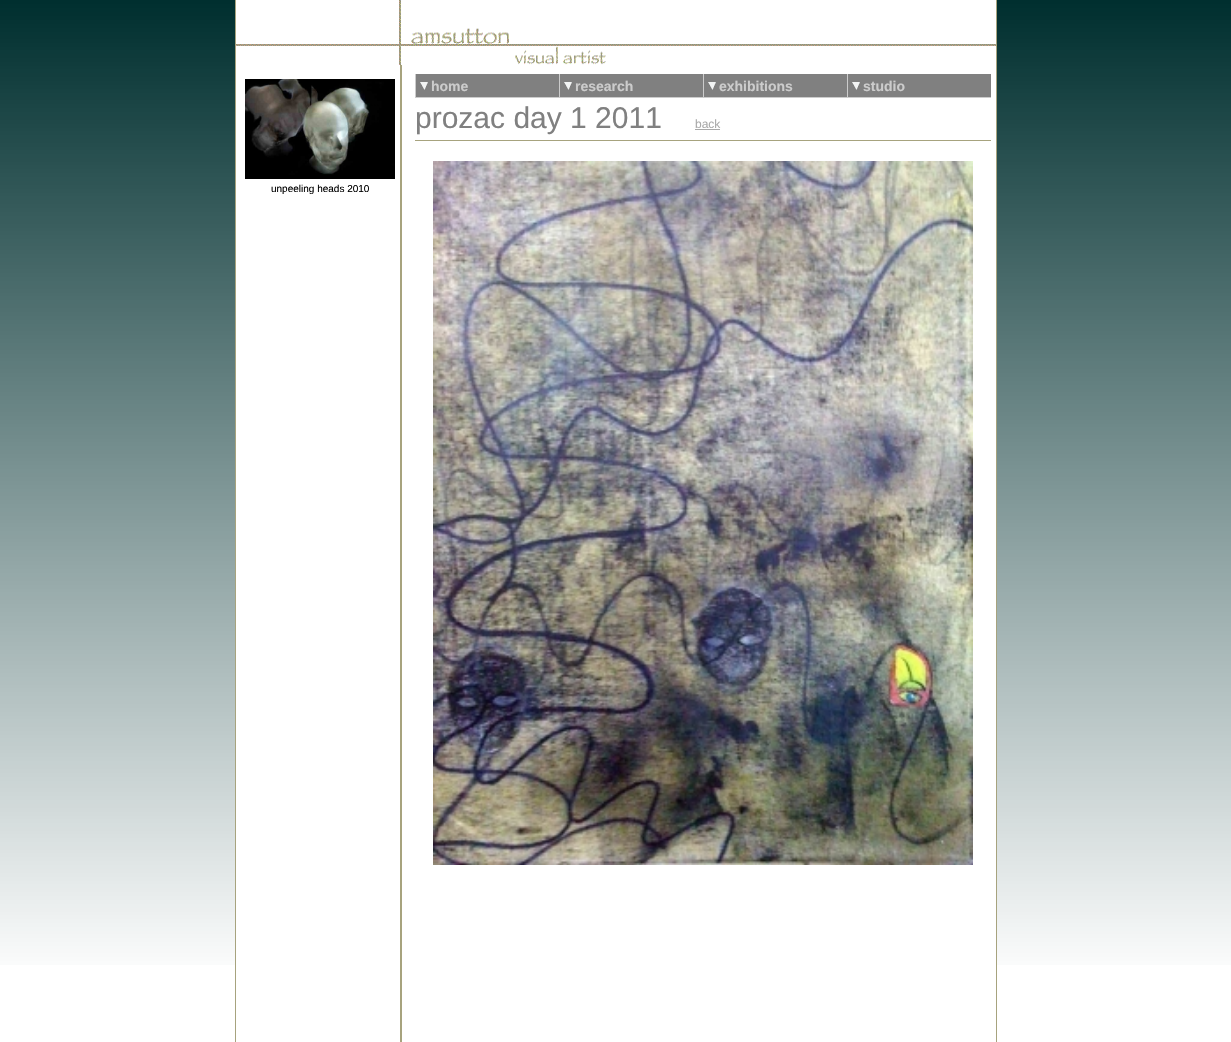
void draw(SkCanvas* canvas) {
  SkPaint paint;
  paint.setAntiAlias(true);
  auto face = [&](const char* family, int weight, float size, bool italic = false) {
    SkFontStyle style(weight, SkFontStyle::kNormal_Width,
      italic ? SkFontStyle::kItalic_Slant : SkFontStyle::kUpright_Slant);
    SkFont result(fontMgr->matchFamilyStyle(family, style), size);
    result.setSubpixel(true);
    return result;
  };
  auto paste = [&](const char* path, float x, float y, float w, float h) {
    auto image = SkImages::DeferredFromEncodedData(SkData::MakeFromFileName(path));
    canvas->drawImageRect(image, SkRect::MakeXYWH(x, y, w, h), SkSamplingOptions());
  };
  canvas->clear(0xffffffff);
  paste("img/1.png", 0, 0, 1231, 965);
  {
    const struct { float x, y, w, h; SkColor color; } items[] = {
      {236, 65, 760, 900, 0xffffffff},
      {996, 0, 1, 1042, 0xffa7a37e},
      {235, 0, 1, 1042, 0xffa7a37e},
      {400, 64, 2, 978, 0xffa7a37e},
    };
    for (auto [x, y, w, h, color] : items) {
      paint.setColor(color);
      canvas->drawRect(SkRect::MakeXYWH(x, y, w, h), paint);
    }
  }
  paste("img/2.png", 236, 0, 760, 65);
  paint.setColor(0xff808080);
  canvas->drawRect(SkRect::MakeXYWH(416, 74, 143, 23), paint);
  paste("img/3.png", 420, 82, 8, 8);
  {
    const struct { float x, y, w, h; SkColor color; } items[] = {
      {415, 97, 576, 1, 0xffcccccc},
      {415, 74, 1, 24, 0xffcccccc},
      {560, 74, 143, 23, 0xff808080},
    };
    for (auto [x, y, w, h, color] : items) {
      paint.setColor(color);
      canvas->drawRect(SkRect::MakeXYWH(x, y, w, h), paint);
    }
  }
  paste("img/3.png", 564, 82, 8, 8);
  paint.setColor(0xffcccccc);
  canvas->drawRect(SkRect::MakeXYWH(559, 74, 1, 24), paint);
  paint.setColor(0xff808080);
  canvas->drawRect(SkRect::MakeXYWH(704, 74, 143, 23), paint);
  paste("img/3.png", 708, 82, 8, 8);
  paint.setColor(0xffcccccc);
  canvas->drawRect(SkRect::MakeXYWH(703, 74, 1, 24), paint);
  paint.setColor(0xff808080);
  canvas->drawRect(SkRect::MakeXYWH(848, 74, 143, 23), paint);
  paste("img/3.png", 852, 82, 8, 8);
  {
    const struct { float x, y, w, h; SkColor color; } items[] = {
      {847, 74, 1, 24, 0xffcccccc},
      {415, 140, 576, 1, 0xffa7a37e},
      {695, 129, 25, 1, 0xffa9a9a9},
    };
    for (auto [x, y, w, h, color] : items) {
      paint.setColor(color);
      canvas->drawRect(SkRect::MakeXYWH(x, y, w, h), paint);
    }
  }
  paste("img/4.png", 433, 161, 540, 704);
  paste("img/5.png", 245, 79, 150, 100);
  auto f0 = face("Liberation Sans", 700, 14);
  paint.setColor(0xffcccccc);
  {
    const struct { const char* s; float x, y; } items[] = {
      {"home", 431, 91},
      {"research", 575, 91},
      {"exhibitions", 719, 91},
      {"studio", 863, 91},
    };
    for (auto [s, x, y] : items) {
      canvas->drawString(s, x, y, f0, paint);
    }
  }
  auto f1 = face("Liberation Sans", 400, 30);
  paint.setColor(0xff808080);
  canvas->drawString("prozac day 1 2011", 415, 128, f1, paint);
  auto f2 = face("Liberation Sans", 400, 12);
  paint.setColor(0xffa9a9a9);
  canvas->drawString("back", 695, 128, f2, paint);
  auto f3 = face("Liberation Sans", 400, 10);
  paint.setColor(0xff000000);
  canvas->drawString("unpeeling heads 2010", 271, 192, f3, paint);
}
